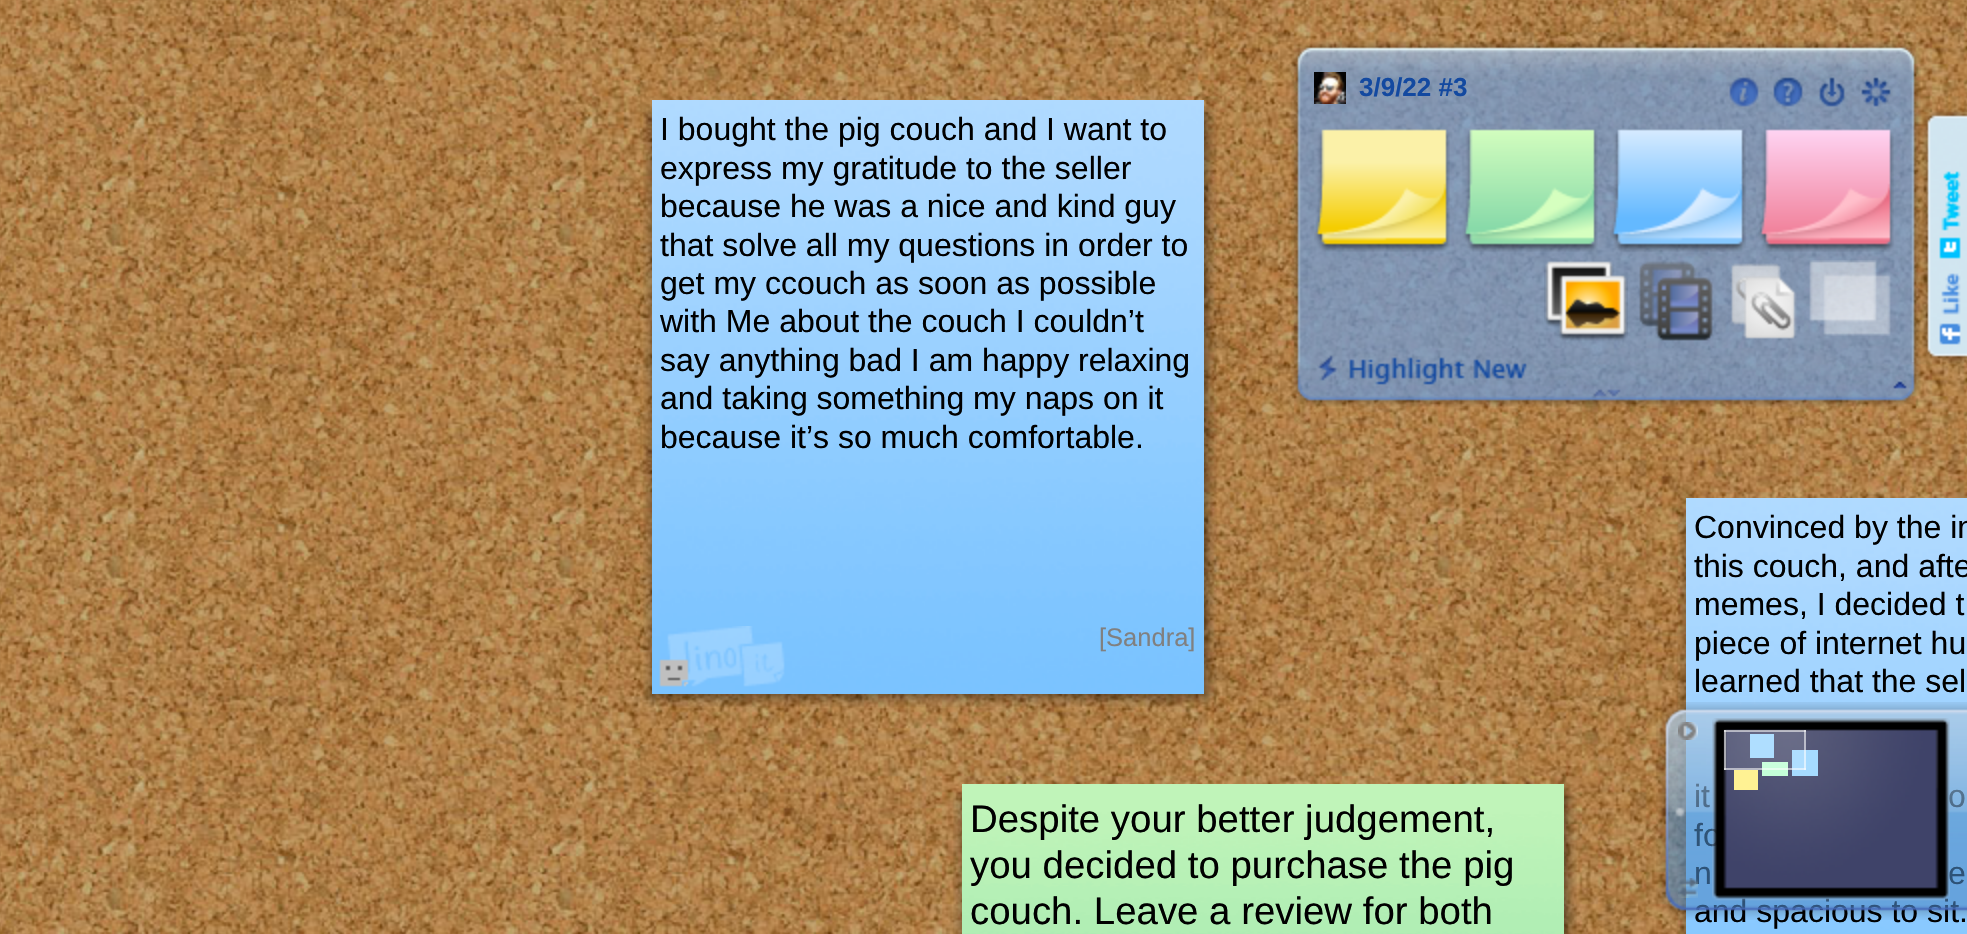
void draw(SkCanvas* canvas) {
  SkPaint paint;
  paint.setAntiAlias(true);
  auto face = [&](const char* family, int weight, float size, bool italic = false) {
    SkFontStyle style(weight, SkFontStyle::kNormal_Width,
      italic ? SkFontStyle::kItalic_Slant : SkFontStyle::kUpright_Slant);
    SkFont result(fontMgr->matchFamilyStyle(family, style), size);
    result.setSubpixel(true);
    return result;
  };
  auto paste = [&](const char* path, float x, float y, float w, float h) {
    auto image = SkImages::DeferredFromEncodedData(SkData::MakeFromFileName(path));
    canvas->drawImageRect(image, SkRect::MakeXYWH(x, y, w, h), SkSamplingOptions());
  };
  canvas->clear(0xffffffff);
  paste("img/21.png", 0, 0, 1967, 934);
  paste("img/1.png", 1291, 41, 630, 41);
  paste("img/2.png", 1291, 82, 630, 280);
  paste("img/3.png", 1291, 362, 630, 45);
  paste("img/4.png", 1314, 72, 32, 32);
  paste("img/5.png", 1729, 77, 30, 30);
  paste("img/6.png", 1773, 77, 30, 30);
  paste("img/7.png", 1819, 77, 26, 30);
  paste("img/8.png", 1861, 77, 30, 30);
  paste("img/9.png", 1314, 129, 136, 123);
  paste("img/10.png", 1462, 129, 136, 123);
  paste("img/11.png", 1610, 129, 136, 123);
  paste("img/12.png", 1758, 129, 136, 123);
  paste("img/13.png", 1544, 261, 84, 80);
  paste("img/14.png", 1639, 261, 74, 80);
  paste("img/15.png", 1731, 263, 66, 76);
  paste("img/16.png", 1809, 260, 82, 76);
  paste("img/17.png", 1317, 355, 210, 30);
  paste("img/18.png", 1893, 381, 14, 8);
  paste("img/19.png", 1593, 389, 28, 8);
  paste("img/20.png", 1921, 109, 46, 254);
  paste("img/22.png", 643, 104, 9, 12);
  paste("img/23.png", 652, 100, 552, 594);
  paste("img/24.png", 1204, 102, 13, 14);
  paste("img/25.png", 643, 116, 9, 578);
  paste("img/26.png", 1204, 116, 13, 578);
  paste("img/27.png", 642, 694, 10, 13);
  paste("img/28.png", 652, 694, 552, 13);
  paste("img/29.png", 1204, 694, 13, 13);
  paste("img/31.png", 667, 626, 118, 61);
  paste("img/30.png", 659, 659, 30, 28);
  paste("img/32.png", 953, 788, 9, 12);
  paste("img/33.png", 962, 784, 602, 150);
  paste("img/34.png", 1564, 787, 13, 13);
  paste("img/35.png", 953, 800, 9, 134);
  paste("img/36.png", 1564, 800, 13, 134);
  paste("img/37.png", 1677, 502, 9, 12);
  paste("img/38.png", 1686, 498, 281, 436);
  paste("img/39.png", 1677, 514, 9, 420);
  auto f0 = face("Liberation Sans", 700, 26);
  paint.setColor(0xff1349a0);
  canvas->drawString("3/9/22 #3", 1359, 96, f0, paint);
  auto f1 = face("Liberation Sans", 400, 32);
  paint.setColor(0xff000000);
  {
    const struct { const char* s; float x, y; } items[] = {
      {"I bought the pig couch and I want to", 660, 140},
      {"express my gratitude to the seller", 660, 179},
      {"because he was a nice and kind guy", 660, 217},
      {"that solve all my questions in order to", 660, 256},
      {"get my ccouch as soon as possible", 660, 294},
      {"with Me about the couch I couldn’t", 660, 332},
      {"say anything bad I am happy relaxing", 660, 371},
      {"and taking something my naps on it", 660, 409},
      {"because it’s so much comfortable.", 660, 448},
    };
    for (auto [s, x, y] : items) {
      canvas->drawString(s, x, y, f1, paint);
    }
  }
  auto f2 = face("Liberation Sans", 400, 25.5f);
  paint.setColor(0xff808080);
  canvas->drawString("[Sandra]", 1099, 646, f2, paint);
  auto f3 = face("Liberation Sans", 400, 38.4f);
  paint.setColor(0xff000000);
  {
    const struct { const char* s; float x, y; } items[] = {
      {"Despite your better judgement,", 970, 832},
      {"you decided to purchase the pig", 970, 878},
      {"couch. Leave a review for both", 970, 924},
    };
    for (auto [s, x, y] : items) {
      canvas->drawString(s, x, y, f3, paint);
    }
  }
  {
    const struct { const char* s; float x, y; } items[] = {
      {"Convinced by the in", 1694, 538},
      {"this couch, and afte", 1694, 577},
      {"memes, I decided t", 1694, 615},
      {"piece of internet hu", 1694, 654},
      {"learned that the sel", 1694, 692},
      {"it", 1694, 807},
      {"o", 1948, 807},
      {"fo", 1694, 846},
      {"n", 1694, 884},
      {"e", 1948, 884},
      {"and spacious to sit.", 1694, 922},
    };
    for (auto [s, x, y] : items) {
      canvas->drawString(s, x, y, f1, paint);
    }
  }
  paste("img/40.png", 1656, 702, 50, 218);
  paste("img/41.png", 1678, 722, 20, 18);
  paste("img/42.png", 1678, 878, 20, 20);
  paste("img/43.png", 1706, 702, 261, 218);
  paste("img/44.png", 1712, 718, 238, 183);
  {
    const struct { float x, y, w, h; SkColor color; } items[] = {
      {1750, 734, 24, 24, 0xffa6dbff},
      {1734, 770, 24, 20, 0xfffff293},
      {1762, 762, 26, 14, 0xffc4ffd8},
      {1792, 750, 26, 26, 0xffa6dbff},
      {1724, 730, 82, 40, 0x1affffff},
      {1724, 730, 2, 40, 0x8cffffff},
      {1724, 730, 82, 2, 0x8cffffff},
      {1804, 730, 2, 40, 0x8cffffff},
      {1724, 768, 82, 2, 0x8cffffff},
    };
    for (auto [x, y, w, h, color] : items) {
      paint.setColor(color);
      canvas->drawRect(SkRect::MakeXYWH(x, y, w, h), paint);
    }
  }
}
